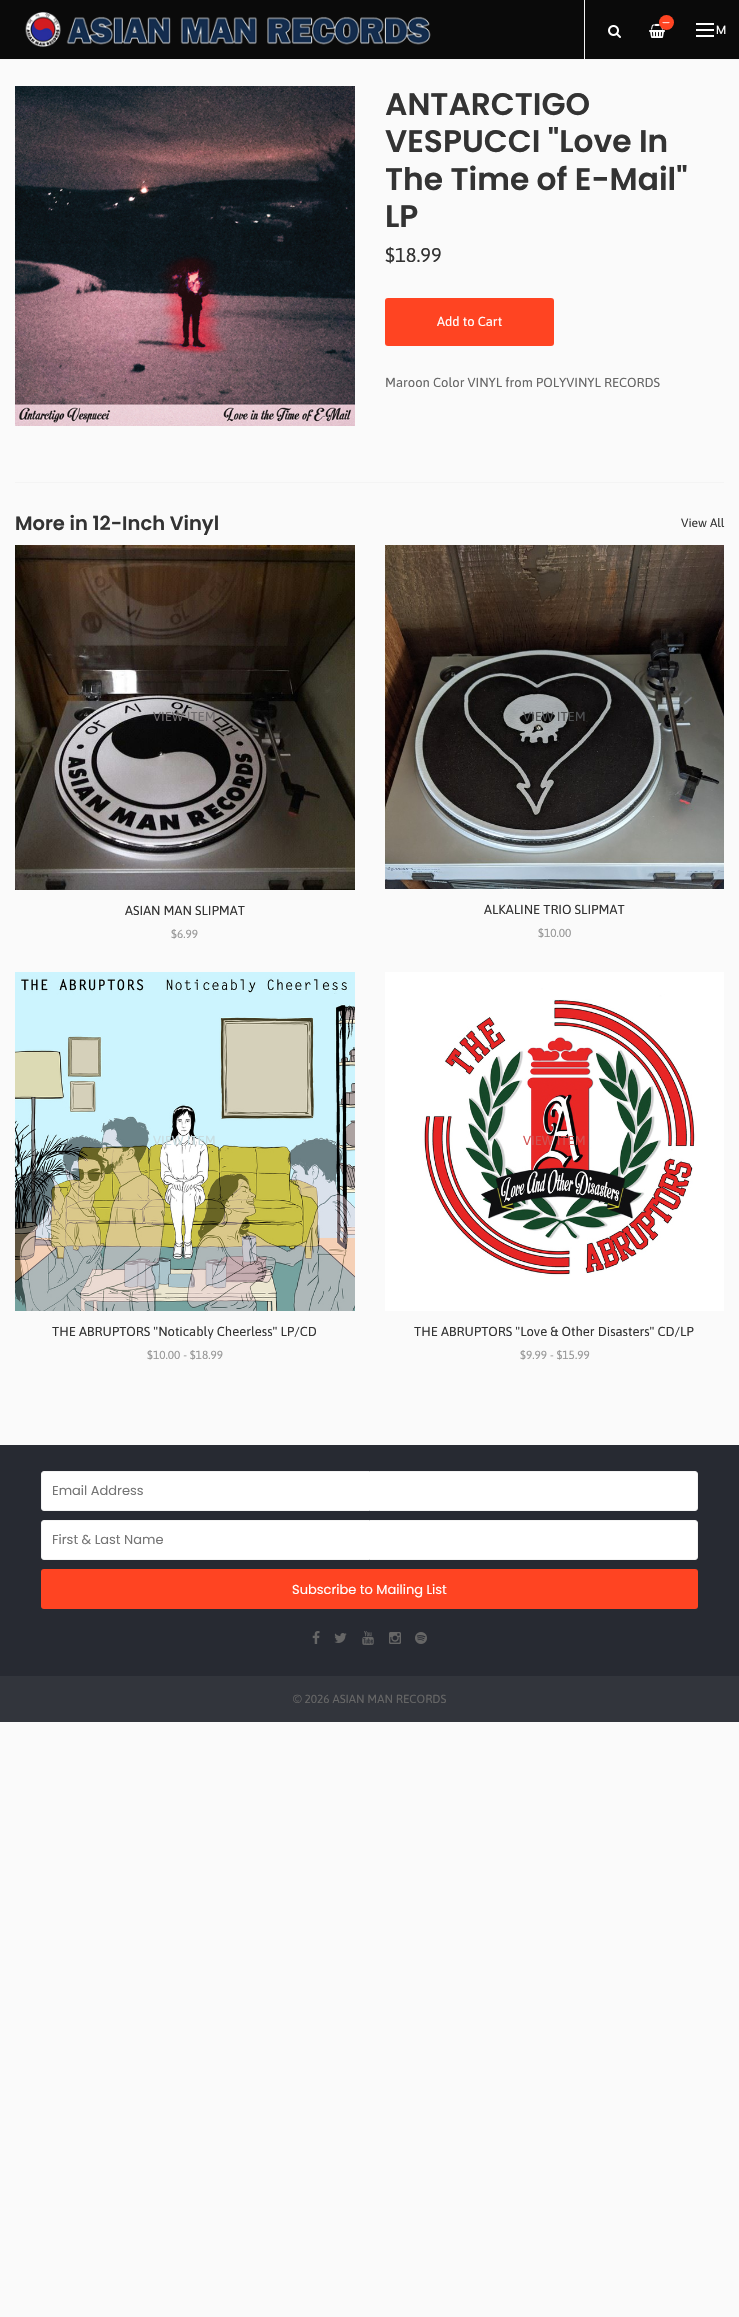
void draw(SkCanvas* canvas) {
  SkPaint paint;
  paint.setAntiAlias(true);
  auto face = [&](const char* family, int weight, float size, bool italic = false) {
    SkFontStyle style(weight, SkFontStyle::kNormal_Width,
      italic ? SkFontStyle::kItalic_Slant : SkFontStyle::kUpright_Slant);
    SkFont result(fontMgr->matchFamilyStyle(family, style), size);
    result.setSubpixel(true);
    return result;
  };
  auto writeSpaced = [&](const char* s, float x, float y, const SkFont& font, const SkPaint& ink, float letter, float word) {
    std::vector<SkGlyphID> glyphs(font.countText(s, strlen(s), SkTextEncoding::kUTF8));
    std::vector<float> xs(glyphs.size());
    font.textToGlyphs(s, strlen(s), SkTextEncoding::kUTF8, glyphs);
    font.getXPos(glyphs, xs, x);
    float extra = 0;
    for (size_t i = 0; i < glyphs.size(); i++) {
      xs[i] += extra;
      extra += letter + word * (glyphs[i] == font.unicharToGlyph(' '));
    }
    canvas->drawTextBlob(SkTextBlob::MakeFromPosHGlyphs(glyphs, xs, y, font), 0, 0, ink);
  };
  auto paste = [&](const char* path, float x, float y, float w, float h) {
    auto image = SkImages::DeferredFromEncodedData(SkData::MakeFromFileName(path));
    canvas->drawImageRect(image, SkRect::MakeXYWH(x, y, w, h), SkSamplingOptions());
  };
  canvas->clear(0xfffafafa);
  paint.setColor(0xff0a0a0a);
  canvas->drawRect(SkRect::MakeXYWH(0, 0, 739, 59), paint);
  paint.setColor(0xfff4f4f4);
  canvas->drawRect(SkRect::MakeXYWH(0, 59, 739, 1), paint);
  paste("img/1.png", 25, 12, 406, 35);
  canvas->drawRect(SkRect::MakeXYWH(584, 0, 1, 60), paint);
  paste("img/2.png", 608, 25, 13, 13);
  paste("img/3.png", 649, 23, 16, 15);
  paint.setColor(0xffff4422);
  canvas->drawCircle(666.5f, 22.5f, 7.5f, paint);
  {
    const struct { float x, y, w, h; SkColor color; } items[] = {
      {696, 29, 18, 2, 0xffffffff},
      {696, 23, 18, 2, 0xffffffff},
      {696, 35, 18, 2, 0xffffffff},
    };
    for (auto [x, y, w, h, color] : items) {
      paint.setColor(color);
      canvas->drawRect(SkRect::MakeXYWH(x, y, w, h), paint);
    }
  }
  paste("img/4.png", 15, 86, 340, 340);
  paint.setColor(0xffff4422);
  canvas->drawRoundRect(SkRect::MakeXYWH(385, 298, 169, 48), 3, 3, paint);
  paint.setColor(0xfff4f4f4);
  canvas->drawRect(SkRect::MakeXYWH(15, 482, 709, 1), paint);
  paste("img/5.png", 15, 545, 340, 345);
  paste("img/6.png", 385, 545, 339, 344);
  paste("img/7.png", 15, 972, 340, 339);
  paste("img/8.png", 385, 972, 339, 339);
  paint.setColor(0xff272a32);
  canvas->drawRect(SkRect::MakeXYWH(0, 1445, 739, 231), paint);
  paint.setColor(0xffffffff);
  canvas->drawRoundRect(SkRect::MakeXYWH(41.5f, 1471.5f, 656, 39), 2.5f, 2.5f, paint);
  paint.setStroke(true);
  paint.setStrokeWidth(1);
  paint.setColor(0xfff4f4f4);
  canvas->drawRoundRect(SkRect::MakeXYWH(41.5f, 1471.5f, 656, 39), 2.5f, 2.5f, paint);
  paint.setStroke(false);
  paint.setColor(0xffffffff);
  canvas->drawRoundRect(SkRect::MakeXYWH(41.5f, 1520.5f, 656, 39), 2.5f, 2.5f, paint);
  paint.setStroke(true);
  paint.setColor(0xfff4f4f4);
  canvas->drawRoundRect(SkRect::MakeXYWH(41.5f, 1520.5f, 656, 39), 2.5f, 2.5f, paint);
  paint.setStroke(false);
  paint.setColor(0xffff4422);
  canvas->drawRoundRect(SkRect::MakeXYWH(41, 1569, 657, 40), 3, 3, paint);
  paste("img/9.png", 312, 1631, 8, 13);
  paste("img/10.png", 334, 1633, 13, 10);
  paste("img/11.png", 362, 1631, 12, 14);
  paste("img/12.png", 389, 1632, 12, 12);
  paste("img/13.png", 415, 1632, 12, 12);
  paint.setColor(0xff32353c);
  canvas->drawRect(SkRect::MakeXYWH(0, 1676, 739, 46), paint);
  auto f0 = face("Poppins", 400, 9);
  paint.setColor(0xffffffff);
  writeSpaced("—", 662, 26, f0, paint, 1, 0);
  auto f1 = face("Poppins", 400, 11.75f);
  writeSpaced("M", 716, 34, f1, paint, 1, 0);
  auto f2 = face("Poppins", 600, 31.25f);
  paint.setColor(0xff333333);
  {
    const struct { const char* s; float x, y; } items[] = {
      {"ANTARCTIGO", 385, 115},
      {"VESPUCCI \"Love In", 385, 152},
      {"The Time of E-Mail\"", 385, 190},
      {"LP", 385, 227},
    };
    for (auto [s, x, y] : items) {
      canvas->drawString(s, x, y, f2, paint);
    }
  }
  auto f3 = face("Asap", 400, 20);
  canvas->drawString("$18.99", 385, 262, f3, paint);
  auto f4 = face("Asap", 400, 13);
  paint.setColor(0xffffffff);
  canvas->drawString("Add to Cart", 437, 326, f4, paint);
  paint.setColor(0xff666666);
  canvas->drawString("Maroon Color VINYL from POLYVINYL RECORDS", 385, 387, f4, paint);
  auto f5 = face("Poppins", 600, 19.5f);
  paint.setColor(0xff333333);
  canvas->drawString("More in 12-Inch Vinyl", 15, 530, f5, paint);
  auto f6 = face("Asap", 400, 12);
  canvas->drawString("View All", 681, 527, f6, paint);
  paint.setColor(0xff6d696b);
  canvas->drawString("VIEW ITEM", 153, 721, f4, paint);
  paint.setColor(0xff333333);
  canvas->drawString("ASIAN MAN SLIPMAT", 125, 915, f4, paint);
  auto f7 = face("Asap", 400, 11.75f);
  paint.setColor(0xff979797);
  canvas->drawString("$6.99", 171, 938, f7, paint);
  paint.setColor(0xff4e5051);
  canvas->drawString("VIEW ITEM", 523, 721, f4, paint);
  paint.setColor(0xff333333);
  canvas->drawString("ALKALINE TRIO SLIPMAT", 484, 914, f4, paint);
  paint.setColor(0xff979797);
  canvas->drawString("$10.00", 538, 937, f7, paint);
  paint.setColor(0xffc8dde1);
  canvas->drawString("VIEW ITEM", 153, 1145, f4, paint);
  paint.setColor(0xff333333);
  canvas->drawString("THE ABRUPTORS \"Noticably Cheerless\" LP/CD", 52, 1336, f4, paint);
  paint.setColor(0xff979797);
  canvas->drawString("$10.00 - $18.99", 147, 1359, f7, paint);
  paint.setColor(0xffd25251);
  canvas->drawString("VIEW ITEM", 523, 1145, f4, paint);
  paint.setColor(0xff333333);
  canvas->drawString("THE ABRUPTORS \"Love & Other Disasters\" CD/LP", 414, 1336, f4, paint);
  paint.setColor(0xff979797);
  canvas->drawString("$9.99 - $15.99", 520, 1359, f7, paint);
  auto f8 = face("Poppins", 400, 13);
  paint.setColor(0xff757575);
  canvas->drawString("Email Address", 52, 1495, f8, paint);
  canvas->drawString("First & Last Name", 52, 1544, f8, paint);
  paint.setColor(0xffffffff);
  canvas->drawString("Subscribe to Mailing List", 292, 1594, f8, paint);
  paint.setColor(0xff666666);
  canvas->drawString("© 2026 ASIAN MAN RECORDS", 293, 1703, f7, paint);
}
